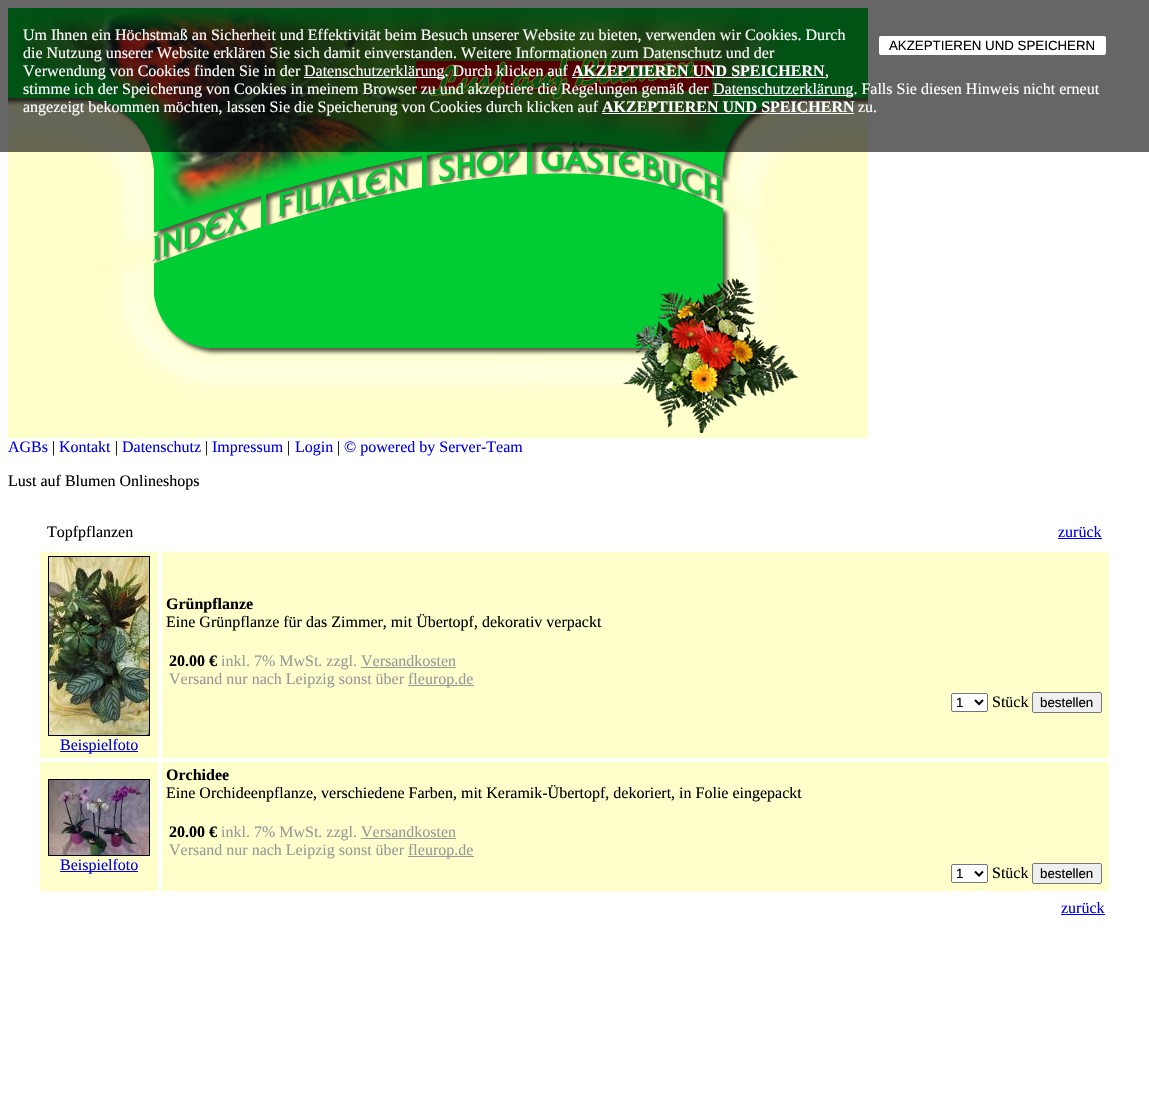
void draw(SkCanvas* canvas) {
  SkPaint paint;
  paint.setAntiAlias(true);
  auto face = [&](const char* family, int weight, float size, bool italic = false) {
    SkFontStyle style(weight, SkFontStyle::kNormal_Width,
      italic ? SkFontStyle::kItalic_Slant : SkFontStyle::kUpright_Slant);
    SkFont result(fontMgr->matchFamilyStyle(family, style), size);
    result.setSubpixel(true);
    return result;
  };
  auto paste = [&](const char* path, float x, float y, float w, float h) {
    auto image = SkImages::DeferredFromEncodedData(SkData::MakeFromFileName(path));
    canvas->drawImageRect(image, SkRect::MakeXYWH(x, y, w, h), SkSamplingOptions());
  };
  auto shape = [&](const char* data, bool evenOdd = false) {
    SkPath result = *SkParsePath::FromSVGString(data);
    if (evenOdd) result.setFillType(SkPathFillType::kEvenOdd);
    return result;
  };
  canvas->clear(0xffffffff);
  paste("img/1.png", 8, 8, 860, 270);
  paint.setColor(0x99000000);
  canvas->drawRect(SkRect::MakeXYWH(0, 0, 1149, 152), paint);
  paint.setColor(0xffffffff);
  canvas->drawRoundRect(SkRect::MakeXYWH(879, 36, 227, 19), 2, 2, paint);
  {
    const struct { float x, y, w, h; SkColor color; } items[] = {
      {304, 77, 141, 1, 0xffffffff},
      {572, 77, 253, 1, 0xffffffff},
      {713, 95, 140, 1, 0xffffffff},
      {602, 113, 252, 1, 0xffffffff},
      {27, 221, 83, 43, 0xffffffcc},
    };
    for (auto [x, y, w, h, color] : items) {
      paint.setColor(color);
      canvas->drawRect(SkRect::MakeXYWH(x, y, w, h), paint);
    }
  }
  paste("img/2.png", 8, 278, 860, 160);
  {
    const struct { float x, y, w, h; SkColor color; } items[] = {
      {1058, 538, 44, 1, 0xff0000ee},
      {162, 552, 947, 206, 0xffffffcc},
      {361, 667, 95, 1, 0xff999999},
      {408, 685, 66, 1, 0xff999999},
    };
    for (auto [x, y, w, h, color] : items) {
      paint.setColor(color);
      canvas->drawRect(SkRect::MakeXYWH(x, y, w, h), paint);
    }
  }
  paint.setColor(0xffffffff);
  canvas->drawRoundRect(SkRect::MakeXYWH(951.5f, 693.5f, 36, 18), 1.5f, 1.5f, paint);
  paint.setStroke(true);
  paint.setStrokeWidth(1);
  paint.setColor(0xff767676);
  canvas->drawRoundRect(SkRect::MakeXYWH(951.5f, 693.5f, 36, 18), 1.5f, 1.5f, paint);
  paint.setStrokeWidth(2);
  paint.setColor(0xff000000);
  canvas->drawPath(shape("M975 700L979 704L983 700"), paint);
  paint.setStroke(false);
  paint.setColor(0xffefefef);
  canvas->drawRoundRect(SkRect::MakeXYWH(1032.5f, 692.5f, 69, 20), 1.5f, 1.5f, paint);
  paint.setStroke(true);
  paint.setStrokeWidth(1);
  paint.setColor(0xff767676);
  canvas->drawRoundRect(SkRect::MakeXYWH(1032.5f, 692.5f, 69, 20), 1.5f, 1.5f, paint);
  paint.setStroke(false);
  paint.setColor(0xffffffcc);
  canvas->drawRect(SkRect::MakeXYWH(40, 552, 118, 206), paint);
  paint.setStroke(true);
  paint.setColor(0xff000000);
  canvas->drawRect(SkRect::MakeXYWH(48.5f, 556.5f, 101, 179), paint);
  paste("img/3.png", 49, 557, 100, 178);
  paint.setStroke(false);
  paint.setColor(0xff0000ee);
  canvas->drawRect(SkRect::MakeXYWH(60, 751, 78, 1), paint);
  paint.setColor(0xffffffcc);
  canvas->drawRect(SkRect::MakeXYWH(40, 762, 118, 129), paint);
  paint.setStroke(true);
  paint.setColor(0xff000000);
  canvas->drawRect(SkRect::MakeXYWH(48.5f, 779.5f, 101, 76), paint);
  paste("img/4.png", 49, 780, 100, 75);
  paint.setStroke(false);
  {
    const struct { float x, y, w, h; SkColor color; } items[] = {
      {60, 871, 78, 1, 0xff0000ee},
      {162, 762, 947, 129, 0xffffffcc},
      {361, 838, 95, 1, 0xff999999},
      {408, 856, 66, 1, 0xff999999},
    };
    for (auto [x, y, w, h, color] : items) {
      paint.setColor(color);
      canvas->drawRect(SkRect::MakeXYWH(x, y, w, h), paint);
    }
  }
  paint.setColor(0xffffffff);
  canvas->drawRoundRect(SkRect::MakeXYWH(951.5f, 864.5f, 36, 18), 1.5f, 1.5f, paint);
  paint.setStroke(true);
  paint.setColor(0xff767676);
  canvas->drawRoundRect(SkRect::MakeXYWH(951.5f, 864.5f, 36, 18), 1.5f, 1.5f, paint);
  paint.setStrokeWidth(2);
  paint.setColor(0xff000000);
  canvas->drawPath(shape("M975 871.5L979 875.5L983 871.5"), paint);
  paint.setStroke(false);
  paint.setColor(0xffefefef);
  canvas->drawRoundRect(SkRect::MakeXYWH(1032.5f, 863.5f, 69, 20), 1.5f, 1.5f, paint);
  paint.setStroke(true);
  paint.setStrokeWidth(1);
  paint.setColor(0xff767676);
  canvas->drawRoundRect(SkRect::MakeXYWH(1032.5f, 863.5f, 69, 20), 1.5f, 1.5f, paint);
  paint.setStroke(false);
  paint.setColor(0xff0000ee);
  canvas->drawRect(SkRect::MakeXYWH(1061, 914, 44, 1), paint);
  auto f0 = face("Liberation Serif", 400, 16);
  paint.setColor(0xffffffff);
  canvas->drawString("Um Ihnen ein Höchstmaß an Sicherheit und Effektivität beim Besuch unserer Website zu bieten, verwenden wir Cookies. Durch", 23, 40, f0, paint);
  canvas->drawString("die Nutzung unserer Website erklären Sie sich damit einverstanden. Weitere Informationen zum Datenschutz und der", 23, 58, f0, paint);
  auto f1 = face("Liberation Sans", 400, 13.3f);
  paint.setColor(0xff000000);
  canvas->drawString("AKZEPTIEREN UND SPEICHERN", 889, 50, f1, paint);
  paint.setColor(0xffffffff);
  canvas->drawString("Verwendung von Cookies finden Sie in der", 23, 76, f0, paint);
  canvas->drawString("Datenschutzerklärung. Durch klicken auf", 304, 76, f0, paint);
  auto f2 = face("Liberation Serif", 700, 16);
  canvas->drawString("AKZEPTIEREN UND SPEICHERN", 572, 76, f2, paint);
  {
    const struct { const char* s; float x, y; } items[] = {
      {",", 825, 76},
      {"stimme ich der Speicherung von Cookies in meinem Browser zu und akzeptiere die Regelungen gemäß der", 23, 94},
      {"Datenschutzerklärung. Falls Sie diesen Hinweis nicht erneut", 713, 94},
      {"angezeigt bekommen möchten, lassen Sie die Speicherung von Cookies durch klicken auf", 23, 112},
    };
    for (auto [s, x, y] : items) {
      canvas->drawString(s, x, y, f0, paint);
    }
  }
  canvas->drawString("AKZEPTIEREN UND SPEICHERN", 602, 112, f2, paint);
  canvas->drawString("zu.", 858, 112, f0, paint);
  paint.setColor(0xff0000ee);
  canvas->drawString("AGBs", 8, 452, f0, paint);
  paint.setColor(0xff000000);
  canvas->drawString("|", 52, 452, f0, paint);
  paint.setColor(0xff0000ee);
  canvas->drawString("Kontakt", 59, 452, f0, paint);
  paint.setColor(0xff000000);
  canvas->drawString("|", 115, 452, f0, paint);
  paint.setColor(0xff0000ee);
  canvas->drawString("Datenschutz", 122, 452, f0, paint);
  paint.setColor(0xff000000);
  canvas->drawString("|", 205, 452, f0, paint);
  paint.setColor(0xff0000ee);
  canvas->drawString("Impressum", 212, 452, f0, paint);
  paint.setColor(0xff000000);
  canvas->drawString("|", 287, 452, f0, paint);
  paint.setColor(0xff0000ee);
  canvas->drawString("Login", 295, 452, f0, paint);
  paint.setColor(0xff000000);
  canvas->drawString("|", 337, 452, f0, paint);
  paint.setColor(0xff0000ee);
  canvas->drawString("© powered by Server-Team", 344, 452, f0, paint);
  paint.setColor(0xff000000);
  canvas->drawString("Lust auf Blumen Onlineshops", 8, 486, f0, paint);
  canvas->drawString("Topfpflanzen", 47, 537, f0, paint);
  paint.setColor(0xff0000ee);
  canvas->drawString("zurück", 1058, 537, f0, paint);
  paint.setColor(0xff000000);
  canvas->drawString("Grünpflanze", 166, 609, f2, paint);
  canvas->drawString("Eine Grünpflanze für das Zimmer, mit Übertopf, dekorativ verpackt", 166, 627, f0, paint);
  canvas->drawString("20.00 €", 169, 666, f2, paint);
  paint.setColor(0xff999999);
  {
    const struct { const char* s; float x, y; } items[] = {
      {"inkl. 7% MwSt. zzgl. Versandkosten", 221, 666},
      {"Versand nur nach Leipzig sonst über", 169, 684},
      {"fleurop.de", 408, 684},
    };
    for (auto [s, x, y] : items) {
      canvas->drawString(s, x, y, f0, paint);
    }
  }
  paint.setColor(0xff000000);
  canvas->drawString("1", 956, 707, f1, paint);
  canvas->drawString("Stück", 992, 707, f0, paint);
  canvas->drawString("bestellen", 1040, 707, f1, paint);
  paint.setColor(0xff0000ee);
  canvas->drawString("Beispielfoto", 60, 750, f0, paint);
  canvas->drawString("Beispielfoto", 60, 870, f0, paint);
  paint.setColor(0xff000000);
  canvas->drawString("Orchidee", 166, 780, f2, paint);
  canvas->drawString("Eine Orchideenpflanze, verschiedene Farben, mit Keramik-Übertopf, dekoriert, in Folie eingepackt", 166, 798, f0, paint);
  canvas->drawString("20.00 €", 169, 837, f2, paint);
  paint.setColor(0xff999999);
  {
    const struct { const char* s; float x, y; } items[] = {
      {"inkl. 7% MwSt. zzgl. Versandkosten", 221, 837},
      {"Versand nur nach Leipzig sonst über", 169, 855},
      {"fleurop.de", 408, 855},
    };
    for (auto [s, x, y] : items) {
      canvas->drawString(s, x, y, f0, paint);
    }
  }
  paint.setColor(0xff000000);
  canvas->drawString("1", 956, 878, f1, paint);
  canvas->drawString("Stück", 992, 878, f0, paint);
  canvas->drawString("bestellen", 1040, 878, f1, paint);
  paint.setColor(0xff0000ee);
  canvas->drawString("zurück", 1061, 913, f0, paint);
}
